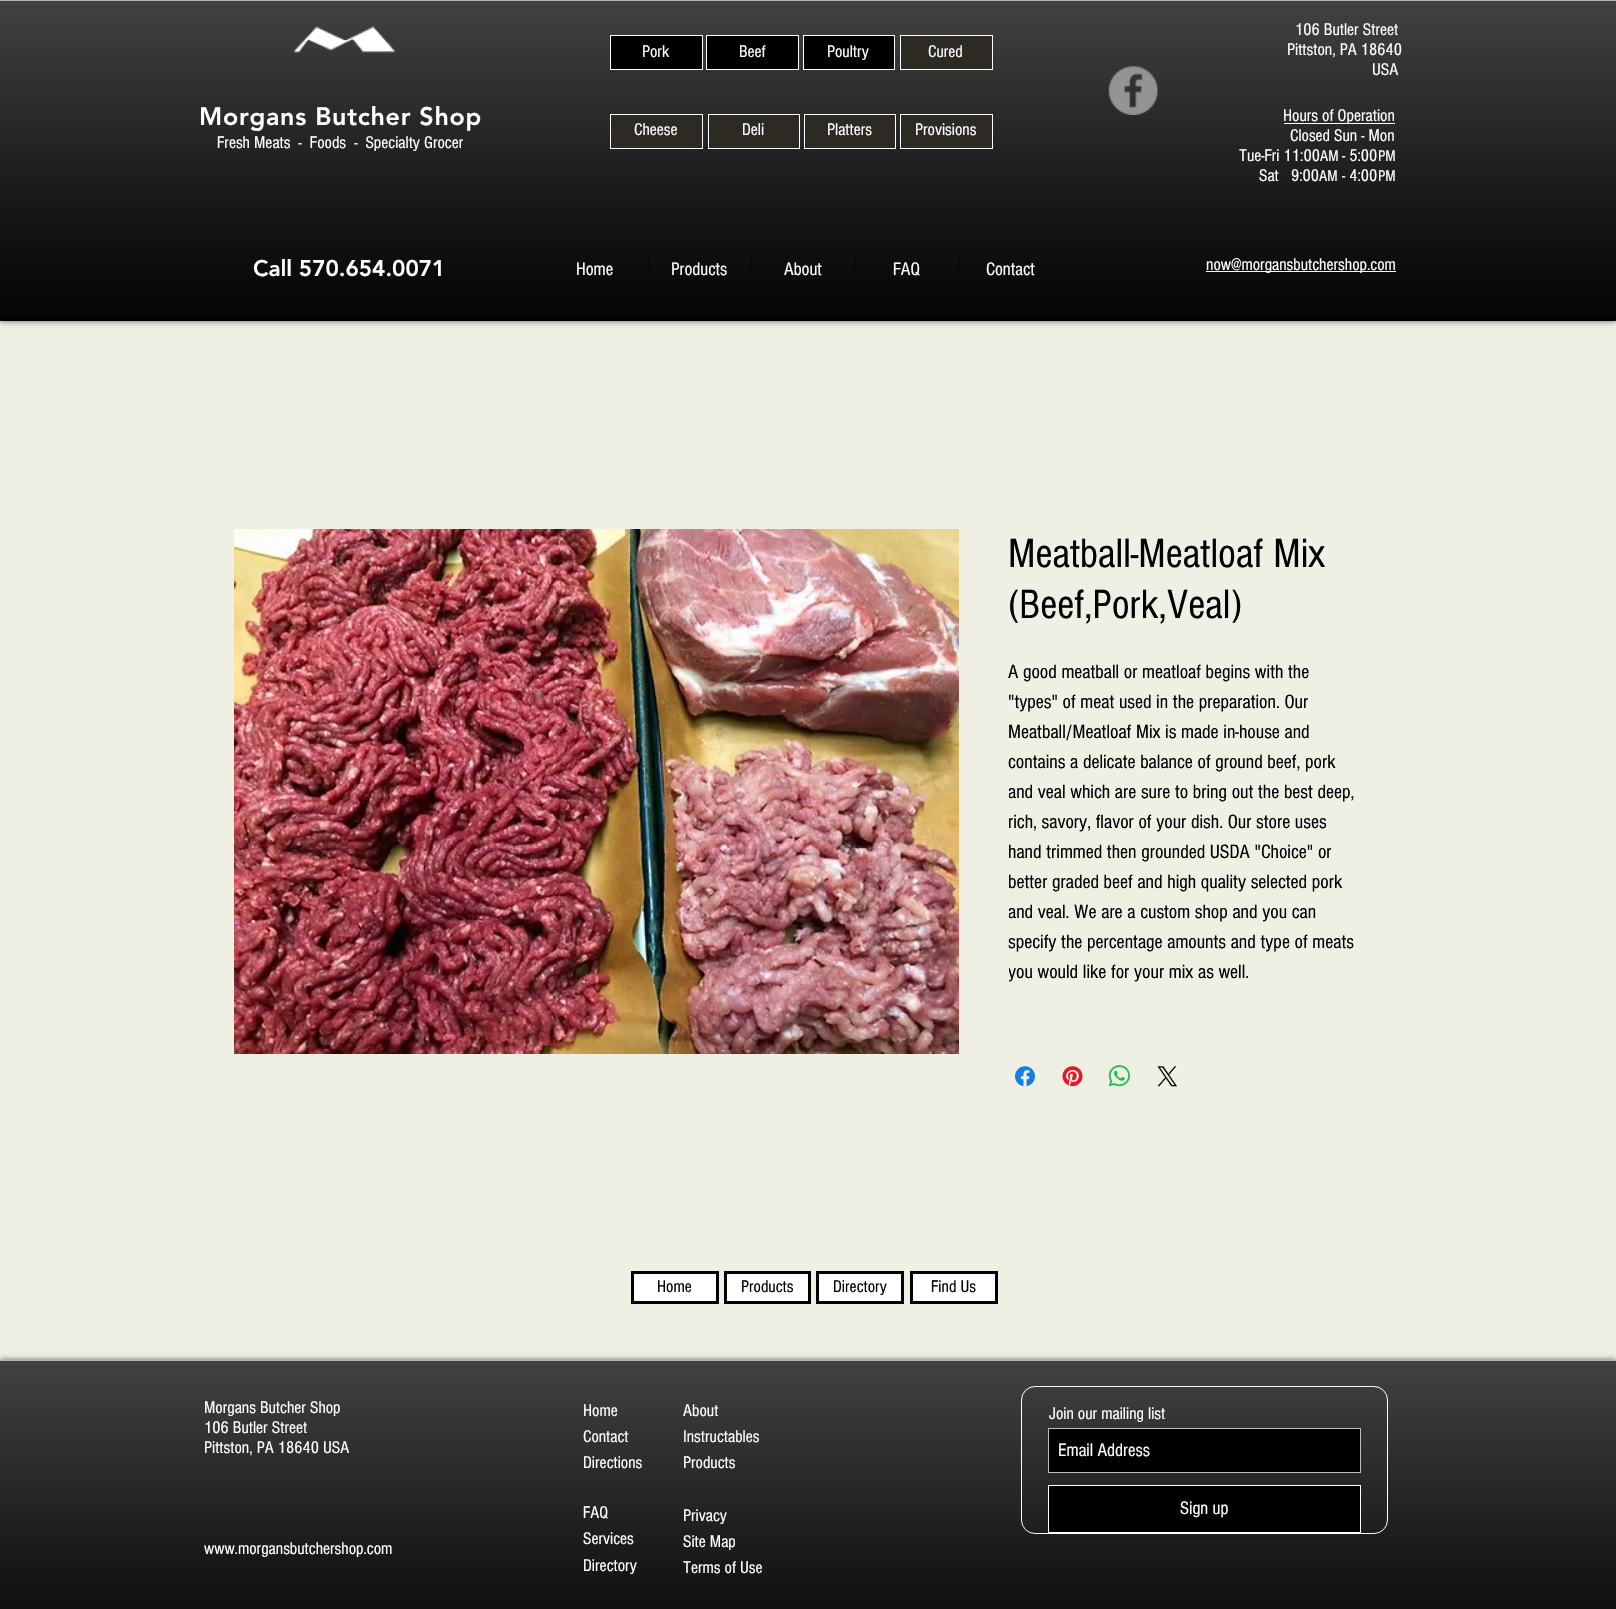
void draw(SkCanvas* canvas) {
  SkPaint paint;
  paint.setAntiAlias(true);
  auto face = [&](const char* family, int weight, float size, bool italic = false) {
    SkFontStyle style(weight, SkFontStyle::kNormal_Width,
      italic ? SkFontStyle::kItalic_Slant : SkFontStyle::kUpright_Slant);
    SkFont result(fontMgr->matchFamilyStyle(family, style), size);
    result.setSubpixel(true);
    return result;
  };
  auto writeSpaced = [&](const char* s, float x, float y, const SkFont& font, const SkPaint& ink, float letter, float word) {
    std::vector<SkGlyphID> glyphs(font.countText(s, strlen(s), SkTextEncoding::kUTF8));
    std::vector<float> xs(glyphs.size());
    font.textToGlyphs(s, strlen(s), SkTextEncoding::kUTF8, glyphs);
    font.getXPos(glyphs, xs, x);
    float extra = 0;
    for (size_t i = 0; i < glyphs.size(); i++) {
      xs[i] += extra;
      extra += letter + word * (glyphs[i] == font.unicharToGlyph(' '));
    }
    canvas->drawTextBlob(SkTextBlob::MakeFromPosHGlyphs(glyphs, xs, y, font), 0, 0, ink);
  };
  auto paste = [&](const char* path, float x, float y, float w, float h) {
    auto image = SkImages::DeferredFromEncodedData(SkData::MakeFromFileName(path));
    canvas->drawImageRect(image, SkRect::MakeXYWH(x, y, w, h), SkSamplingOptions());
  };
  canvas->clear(0xfff0efe4);
  paint.setColor(0x99000000);
  paint.setMaskFilter(SkMaskFilter::MakeBlur(kNormal_SkBlurStyle, 3));
  canvas->drawRect(SkRect::MakeXYWH(0, 0, 1616, 321), paint);
  paint.setMaskFilter(nullptr);
  paint.setColor(0xff000000);
  canvas->drawRect(SkRect::MakeXYWH(0, 1, 1616, 319), paint);
  paste("img/1.png", 0, 1, 1616, 316);
  paint.setColor(0xff020202);
  canvas->drawRect(SkRect::MakeXYWH(0, 320, 1616, 1), paint);
  paint.setColor(0xffb3b3b3);
  canvas->drawRect(SkRect::MakeXYWH(0, 0, 1616, 1), paint);
  paste("img/2.png", 293, 26, 102, 27);
  paint.setColor(0xff000000);
  canvas->drawRect(SkRect::MakeXYWH(610.5f, 35.5f, 92, 34), paint);
  paint.setStroke(true);
  paint.setStrokeWidth(1);
  paint.setColor(0xffffffff);
  canvas->drawRect(SkRect::MakeXYWH(610.5f, 35.5f, 92, 34), paint);
  paint.setStroke(false);
  paint.setColor(0xff000000);
  canvas->drawRect(SkRect::MakeXYWH(706.5f, 35.5f, 92, 34), paint);
  paint.setStroke(true);
  paint.setColor(0xffffffff);
  canvas->drawRect(SkRect::MakeXYWH(706.5f, 35.5f, 92, 34), paint);
  paint.setStroke(false);
  paint.setColor(0xff000000);
  canvas->drawRect(SkRect::MakeXYWH(803.5f, 35.5f, 91, 34), paint);
  paint.setStroke(true);
  paint.setColor(0xffffffff);
  canvas->drawRect(SkRect::MakeXYWH(803.5f, 35.5f, 91, 34), paint);
  paint.setStroke(false);
  paint.setColor(0xff2d2a23);
  canvas->drawRect(SkRect::MakeXYWH(900.5f, 35.5f, 92, 34), paint);
  paint.setStroke(true);
  paint.setColor(0xffffffff);
  canvas->drawRect(SkRect::MakeXYWH(900.5f, 35.5f, 92, 34), paint);
  paint.setStroke(false);
  paint.setColor(0xff2d2a23);
  canvas->drawRect(SkRect::MakeXYWH(610.5f, 114.5f, 92, 34), paint);
  paint.setStroke(true);
  paint.setColor(0xffffffff);
  canvas->drawRect(SkRect::MakeXYWH(610.5f, 114.5f, 92, 34), paint);
  paint.setStroke(false);
  paint.setColor(0xff2d2a23);
  canvas->drawRect(SkRect::MakeXYWH(708.5f, 114.5f, 91, 34), paint);
  paint.setStroke(true);
  paint.setColor(0xffffffff);
  canvas->drawRect(SkRect::MakeXYWH(708.5f, 114.5f, 91, 34), paint);
  paint.setStroke(false);
  paint.setColor(0xff2d2a23);
  canvas->drawRect(SkRect::MakeXYWH(804.5f, 114.5f, 91, 34), paint);
  paint.setStroke(true);
  paint.setColor(0xffffffff);
  canvas->drawRect(SkRect::MakeXYWH(804.5f, 114.5f, 91, 34), paint);
  paint.setStroke(false);
  paint.setColor(0xff2d2a23);
  canvas->drawRect(SkRect::MakeXYWH(900.5f, 114.5f, 92, 34), paint);
  paint.setStroke(true);
  paint.setColor(0xffffffff);
  canvas->drawRect(SkRect::MakeXYWH(900.5f, 114.5f, 92, 34), paint);
  paint.setStroke(false);
  {
    const struct { float x, y, w, h; SkColor color; } items[] = {
      {1284, 123, 111, 1, 0xffffffff},
      {648, 251, 1, 38, 0x6e000000},
      {751, 251, 1, 38, 0x6e000000},
      {855, 251, 1, 38, 0x6e000000},
      {959, 251, 1, 38, 0x6e000000},
      {1206, 271, 190, 1, 0xffffffff},
    };
    for (auto [x, y, w, h, color] : items) {
      paint.setColor(color);
      canvas->drawRect(SkRect::MakeXYWH(x, y, w, h), paint);
    }
  }
  paste("img/3.png", 1108, 66, 50, 49);
  paste("img/4.png", 234, 529, 725, 525);
  paste("img/5.png", 1015, 1066, 20, 21);
  paste("img/6.png", 1062, 1066, 21, 21);
  paste("img/7.png", 1108, 1065, 22, 22);
  paste("img/8.png", 1157, 1066, 20, 21);
  canvas->drawRect(SkRect::MakeXYWH(632.5f, 1272.5f, 85, 30), paint);
  paint.setStroke(true);
  paint.setStrokeWidth(3);
  paint.setColor(0xff000000);
  canvas->drawRect(SkRect::MakeXYWH(632.5f, 1272.5f, 85, 30), paint);
  paint.setStroke(false);
  paint.setColor(0xffffffff);
  canvas->drawRect(SkRect::MakeXYWH(725.5f, 1272.5f, 84, 30), paint);
  paint.setStroke(true);
  paint.setColor(0xff000000);
  canvas->drawRect(SkRect::MakeXYWH(725.5f, 1272.5f, 84, 30), paint);
  paint.setStroke(false);
  paint.setColor(0xffffffff);
  canvas->drawRect(SkRect::MakeXYWH(817.5f, 1272.5f, 85, 30), paint);
  paint.setStroke(true);
  paint.setColor(0xff000000);
  canvas->drawRect(SkRect::MakeXYWH(817.5f, 1272.5f, 85, 30), paint);
  paint.setStroke(false);
  paint.setColor(0xffffffff);
  canvas->drawRect(SkRect::MakeXYWH(911.5f, 1272.5f, 85, 30), paint);
  paint.setStroke(true);
  paint.setColor(0xff000000);
  canvas->drawRect(SkRect::MakeXYWH(911.5f, 1272.5f, 85, 30), paint);
  paint.setStroke(false);
  paint.setColor(0x99000000);
  paint.setMaskFilter(SkMaskFilter::MakeBlur(kNormal_SkBlurStyle, 3));
  canvas->drawRect(SkRect::MakeXYWH(0, 1360, 1616, 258), paint);
  paint.setMaskFilter(nullptr);
  paint.setColor(0xff000000);
  canvas->drawRect(SkRect::MakeXYWH(0, 1361, 1616, 248), paint);
  paste("img/9.png", 0, 1361, 1616, 248);
  paint.setColor(0xffb3b3b3);
  canvas->drawRect(SkRect::MakeXYWH(0, 1360, 1616, 1), paint);
  paint.setStroke(true);
  paint.setStrokeWidth(1);
  paint.setColor(0xffffffff);
  canvas->drawRoundRect(SkRect::MakeXYWH(1021.5f, 1386.5f, 366, 147), 13.5f, 13.5f, paint);
  paint.setStroke(false);
  paint.setColor(0xff000000);
  canvas->drawRect(SkRect::MakeXYWH(1048.5f, 1428.5f, 312, 44), paint);
  paint.setStroke(true);
  paint.setColor(0xffbfbfbf);
  canvas->drawRect(SkRect::MakeXYWH(1048.5f, 1428.5f, 312, 44), paint);
  paint.setStroke(false);
  paint.setColor(0xff000000);
  canvas->drawRect(SkRect::MakeXYWH(1048.5f, 1485.5f, 312, 47), paint);
  paint.setStroke(true);
  paint.setColor(0xffffffff);
  canvas->drawRect(SkRect::MakeXYWH(1048.5f, 1485.5f, 312, 47), paint);
  auto f0 = face("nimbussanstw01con", 400, 17.5f);
  paint.setStroke(false);
  {
    const struct { const char* s; float x, y; } items[] = {
      {"Pork", 642, 57},
      {"Beef", 739, 57},
      {"Poultry", 827, 57},
      {"Cured", 928, 57},
      {"106 Butler Street", 1295, 35},
      {"Pittston, PA 18640", 1287, 55},
      {"USA", 1372, 75},
    };
    for (auto [s, x, y] : items) {
      canvas->drawString(s, x, y, f0, paint);
    }
  }
  auto f1 = face("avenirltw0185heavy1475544", 900, 25);
  writeSpaced("Morgans Butcher Shop", 199, 125, f1, paint, 0.75f, 0);
  {
    const struct { const char* s; float x, y; } items[] = {
      {"Fresh Meats  -  Foods  -  Specialty Grocer", 217, 148},
      {"Cheese", 634, 135},
      {"Deli", 742, 135},
      {"Platters", 827, 135},
      {"Provisions", 915, 135},
      {"Hours of Operation", 1283, 121},
      {"Closed Sun - Mon", 1290, 141},
      {"Tue-Fri 11:00", 1239, 161},
    };
    for (auto [s, x, y] : items) {
      canvas->drawString(s, x, y, f0, paint);
    }
  }
  auto f2 = face("nimbussanstw01con", 400, 16);
  canvas->drawString("AM", 1320, 161, f2, paint);
  canvas->drawString("- 5:00", 1342, 161, f0, paint);
  canvas->drawString("PM", 1378, 161, f2, paint);
  canvas->drawString("Sat   9:00", 1259, 181, f0, paint);
  canvas->drawString("AM", 1319, 181, f2, paint);
  canvas->drawString("- 4:00", 1342, 181, f0, paint);
  canvas->drawString("PM", 1378, 181, f2, paint);
  auto f3 = face("avenirltw0185heavy1475544", 900, 22.5f);
  canvas->drawString("Call 570.654.0071", 253, 276, f3, paint);
  auto f4 = face("nimbussanstw01con", 400, 18.75f);
  {
    const struct { const char* s; float x, y; } items[] = {
      {"Home", 576, 275},
      {"Products", 671, 275},
      {"About", 784, 275},
      {"FAQ", 893, 275},
      {"Contact", 986, 275},
    };
    for (auto [s, x, y] : items) {
      canvas->drawString(s, x, y, f4, paint);
    }
  }
  canvas->drawString("now@morgansbutchershop.com", 1206, 270, f0, paint);
  auto f5 = face("nimbussanstw01con", 400, 42.5f);
  paint.setColor(0xff000000);
  canvas->drawString("Meatball-Meatloaf Mix", 1008, 567, f5, paint);
  canvas->drawString("(Beef,Pork,Veal)", 1008, 618, f5, paint);
  auto f6 = face("nimbussanstw01con", 400, 20);
  {
    const struct { const char* s; float x, y; } items[] = {
      {"A good meatball or meatloaf begins with the", 1008, 678},
      {"\"types\" of meat used in the preparation. Our", 1008, 708},
      {"Meatball/Meatloaf Mix is made in-house and", 1008, 738},
      {"contains a delicate balance of ground beef, pork", 1008, 768},
    };
    for (auto [s, x, y] : items) {
      canvas->drawString(s, x, y, f6, paint);
    }
  }
  canvas->save();
  canvas->clipRect(SkRect::MakeXYWH(1009, 656, 350, 330));
  canvas->drawString("and veal which are sure to bring out the best deep,", 1008, 798, f6, paint);
  canvas->restore();
  {
    const struct { const char* s; float x, y; } items[] = {
      {"rich, savory, flavor of your dish. Our store uses", 1008, 828},
      {"hand trimmed then grounded USDA \"Choice\" or", 1008, 858},
      {"better graded beef and high quality selected pork", 1008, 888},
    };
    for (auto [s, x, y] : items) {
      canvas->drawString(s, x, y, f6, paint);
    }
  }
  canvas->save();
  canvas->clipRect(SkRect::MakeXYWH(1009, 656, 350, 330));
  canvas->drawString("and veal. We are a custom shop and you can", 1008, 918, f6, paint);
  canvas->restore();
  canvas->drawString("specify the percentage amounts and type of meats", 1008, 948, f6, paint);
  canvas->save();
  canvas->clipRect(SkRect::MakeXYWH(1009, 656, 350, 330));
  canvas->drawString("you would like for your mix as well.", 1008, 978, f6, paint);
  canvas->restore();
  {
    const struct { const char* s; float x, y; } items[] = {
      {"Home", 657, 1292},
      {"Products", 741, 1292},
      {"Directory", 833, 1292},
      {"Find Us", 931, 1292},
    };
    for (auto [s, x, y] : items) {
      canvas->drawString(s, x, y, f0, paint);
    }
  }
  paint.setColor(0xffffffff);
  {
    const struct { const char* s; float x, y; } items[] = {
      {"Morgans Butcher Shop", 204, 1413},
      {"106 Butler Street", 204, 1433},
      {"Pittston, PA 18640 USA", 204, 1453},
      {"Home", 583, 1416},
      {"Contact", 583, 1442},
      {"Directions", 583, 1468},
      {"FAQ", 583, 1518},
      {"Services", 583, 1544},
      {"Directory", 583, 1571},
      {"About", 683, 1416},
      {"Instructables", 683, 1442},
      {"Products", 683, 1468},
      {"Privacy", 683, 1521},
      {"Site Map", 683, 1547},
      {"Terms of Use", 683, 1573},
      {"Join our mailing list", 1049, 1419},
    };
    for (auto [s, x, y] : items) {
      canvas->drawString(s, x, y, f0, paint);
    }
  }
  canvas->drawString("Email Address", 1058, 1456, f4, paint);
  canvas->drawString("Sign up", 1180, 1514, f4, paint);
  canvas->drawString("www.morgansbutchershop.com", 204, 1554, f0, paint);
}
